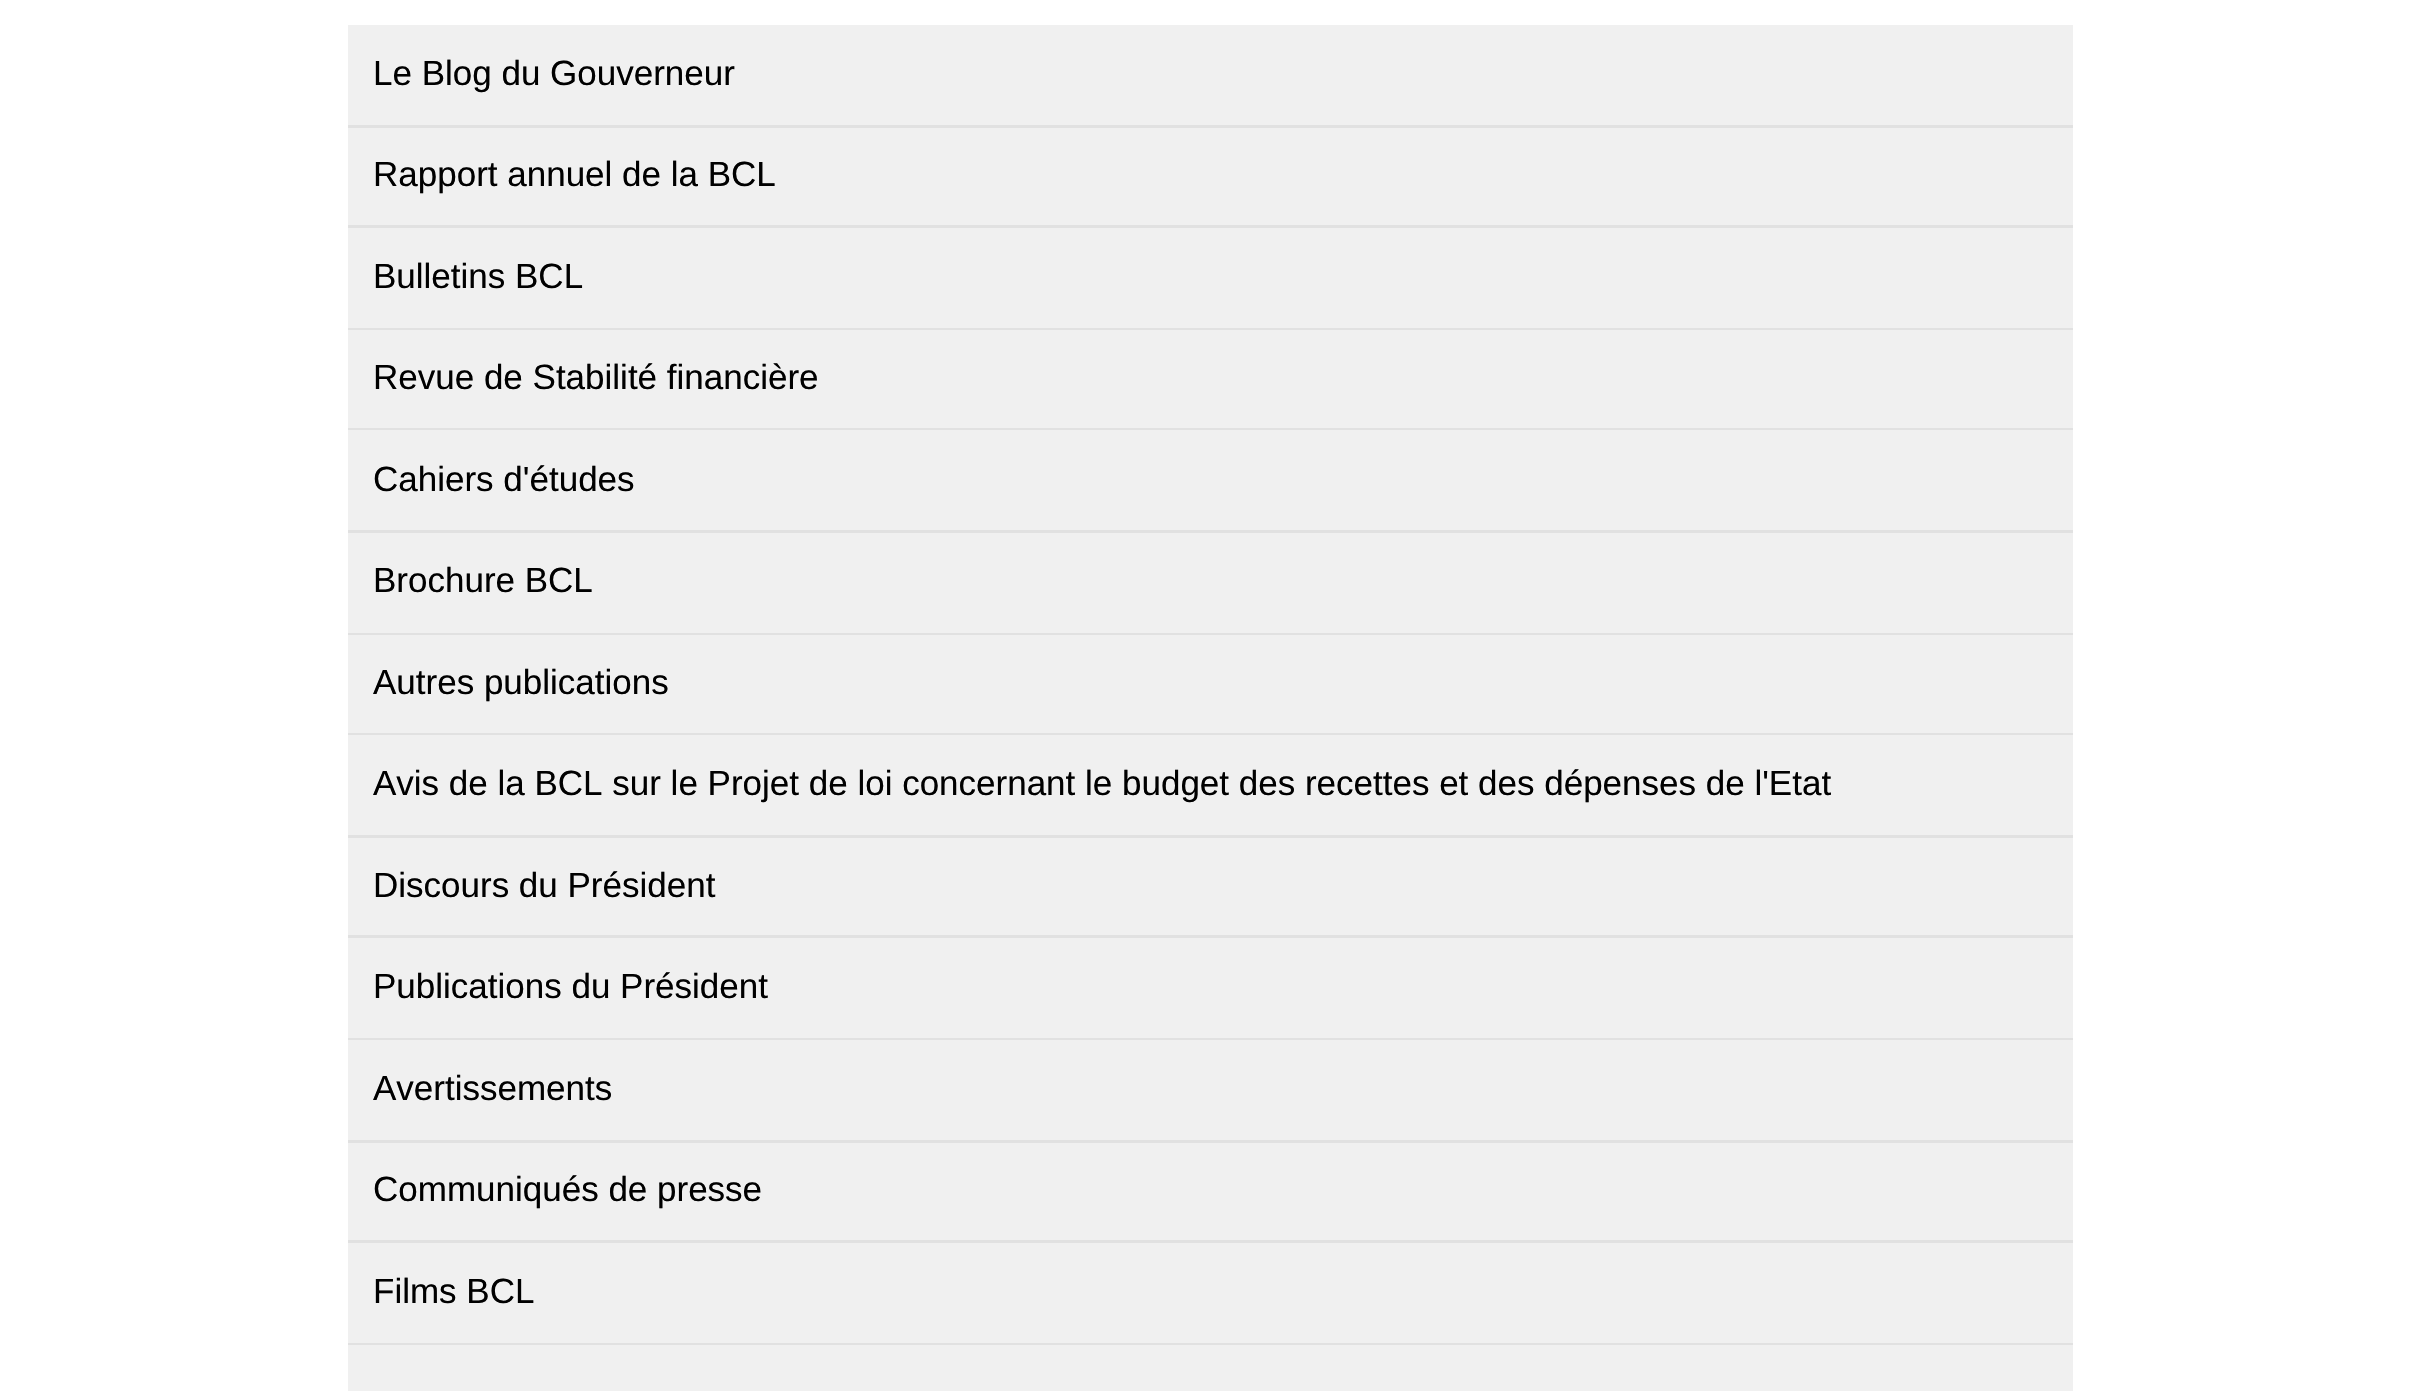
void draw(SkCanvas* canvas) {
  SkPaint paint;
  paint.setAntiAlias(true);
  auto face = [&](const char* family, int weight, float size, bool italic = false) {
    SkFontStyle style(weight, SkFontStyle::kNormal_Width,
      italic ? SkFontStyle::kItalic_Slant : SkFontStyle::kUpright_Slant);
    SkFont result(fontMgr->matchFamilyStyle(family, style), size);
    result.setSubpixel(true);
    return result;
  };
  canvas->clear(0xffffffff);
  {
    const struct { float x, y, w, h; SkColor color; } items[] = {
      {348, 25, 1725, 100, 0xfff0f0f0},
      {348, 125, 1725, 3, 0xffe1e1e1},
      {348, 128, 1725, 97, 0xfff0f0f0},
      {348, 225, 1725, 3, 0xffe1e1e1},
      {348, 228, 1725, 100, 0xfff0f0f0},
      {348, 328, 1725, 2, 0xffe1e1e1},
      {348, 330, 1725, 98, 0xfff0f0f0},
      {348, 428, 1725, 2, 0xffe1e1e1},
      {348, 430, 1725, 100, 0xfff0f0f0},
      {348, 530, 1725, 3, 0xffe1e1e1},
      {348, 533, 1725, 100, 0xfff0f0f0},
      {348, 633, 1725, 2, 0xffe1e1e1},
      {348, 635, 1725, 98, 0xfff0f0f0},
      {348, 733, 1725, 2, 0xffe1e1e1},
      {348, 735, 1725, 100, 0xfff0f0f0},
      {348, 835, 1725, 3, 0xffe1e1e1},
      {348, 838, 1725, 97, 0xfff0f0f0},
      {348, 935, 1725, 3, 0xffe1e1e1},
      {348, 938, 1725, 100, 0xfff0f0f0},
      {348, 1038, 1725, 2, 0xffe1e1e1},
      {348, 1040, 1725, 100, 0xfff0f0f0},
      {348, 1140, 1725, 3, 0xffe1e1e1},
      {348, 1143, 1725, 97, 0xfff0f0f0},
      {348, 1240, 1725, 3, 0xffe1e1e1},
      {348, 1243, 1725, 100, 0xfff0f0f0},
      {348, 1343, 1725, 2, 0xffe1e1e1},
      {348, 1345, 1725, 46, 0xfff0f0f0},
    };
    for (auto [x, y, w, h, color] : items) {
      paint.setColor(color);
      canvas->drawRect(SkRect::MakeXYWH(x, y, w, h), paint);
    }
  }
  auto f0 = face("Liberation Sans", 400, 35);
  paint.setColor(0xff000000);
  {
    const struct { const char* s; float x, y; } items[] = {
      {"Le Blog du Gouverneur", 373, 85},
      {"Rapport annuel de la BCL", 373, 186},
      {"Bulletins BCL", 373, 288},
      {"Revue de Stabilité financière", 373, 389},
      {"Cahiers d'études", 373, 491},
      {"Brochure BCL", 373, 592},
      {"Autres publications", 373, 694},
      {"Avis de la BCL sur le Projet de loi concernant le budget des recettes et des dépenses de l'Etat", 373, 795},
      {"Discours du Président", 373, 897},
      {"Publications du Président", 373, 998},
      {"Avertissements", 373, 1100},
      {"Communiqués de presse", 373, 1201},
      {"Films BCL", 373, 1303},
    };
    for (auto [s, x, y] : items) {
      canvas->drawString(s, x, y, f0, paint);
    }
  }
}
